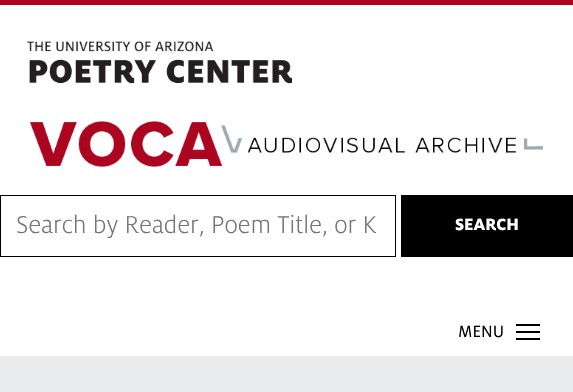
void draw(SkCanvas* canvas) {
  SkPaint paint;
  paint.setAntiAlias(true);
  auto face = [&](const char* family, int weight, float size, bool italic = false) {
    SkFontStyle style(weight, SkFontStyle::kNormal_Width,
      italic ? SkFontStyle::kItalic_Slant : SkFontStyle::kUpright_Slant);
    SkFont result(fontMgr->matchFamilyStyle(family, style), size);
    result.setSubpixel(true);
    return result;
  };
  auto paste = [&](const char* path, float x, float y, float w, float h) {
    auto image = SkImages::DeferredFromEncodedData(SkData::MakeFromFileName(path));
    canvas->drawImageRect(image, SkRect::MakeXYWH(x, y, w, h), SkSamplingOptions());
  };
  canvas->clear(0xffffffff);
  paint.setColor(0xffab0520);
  canvas->drawRect(SkRect::MakeXYWH(0, 0, 573, 5), paint);
  paste("img/1.png", 27, 41, 265, 43);
  paste("img/2.png", 30, 121, 513, 46);
  paint.setStroke(true);
  paint.setStrokeWidth(1);
  paint.setColor(0xff000000);
  canvas->drawRect(SkRect::MakeXYWH(0.5f, 195.5f, 395, 61), paint);
  paint.setStroke(false);
  {
    const struct { float x, y, w, h; SkColor color; } items[] = {
      {401, 195, 172, 62, 0xff000000},
      {516, 331, 24, 2, 0xff000000},
      {516, 324, 24, 2, 0xff000000},
      {516, 338, 24, 2, 0xff000000},
      {0, 356, 573, 36, 0xffe9ebec},
    };
    for (auto [x, y, w, h, color] : items) {
      paint.setColor(color);
      canvas->drawRect(SkRect::MakeXYWH(x, y, w, h), paint);
    }
  }
  auto f0 = face("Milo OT", 300, 27);
  paint.setColor(0xff757575);
  canvas->drawString("Search by Reader, Poem Title, or K", 16, 233, f0, paint);
  auto f1 = face("Milo OT", 700, 18);
  paint.setColor(0xffffffff);
  canvas->drawString("SEARCH", 455, 230, f1, paint);
  auto f2 = face("Milo OT", 400, 18);
  paint.setColor(0xff000000);
  canvas->drawString("MENU", 458, 337, f2, paint);
}
